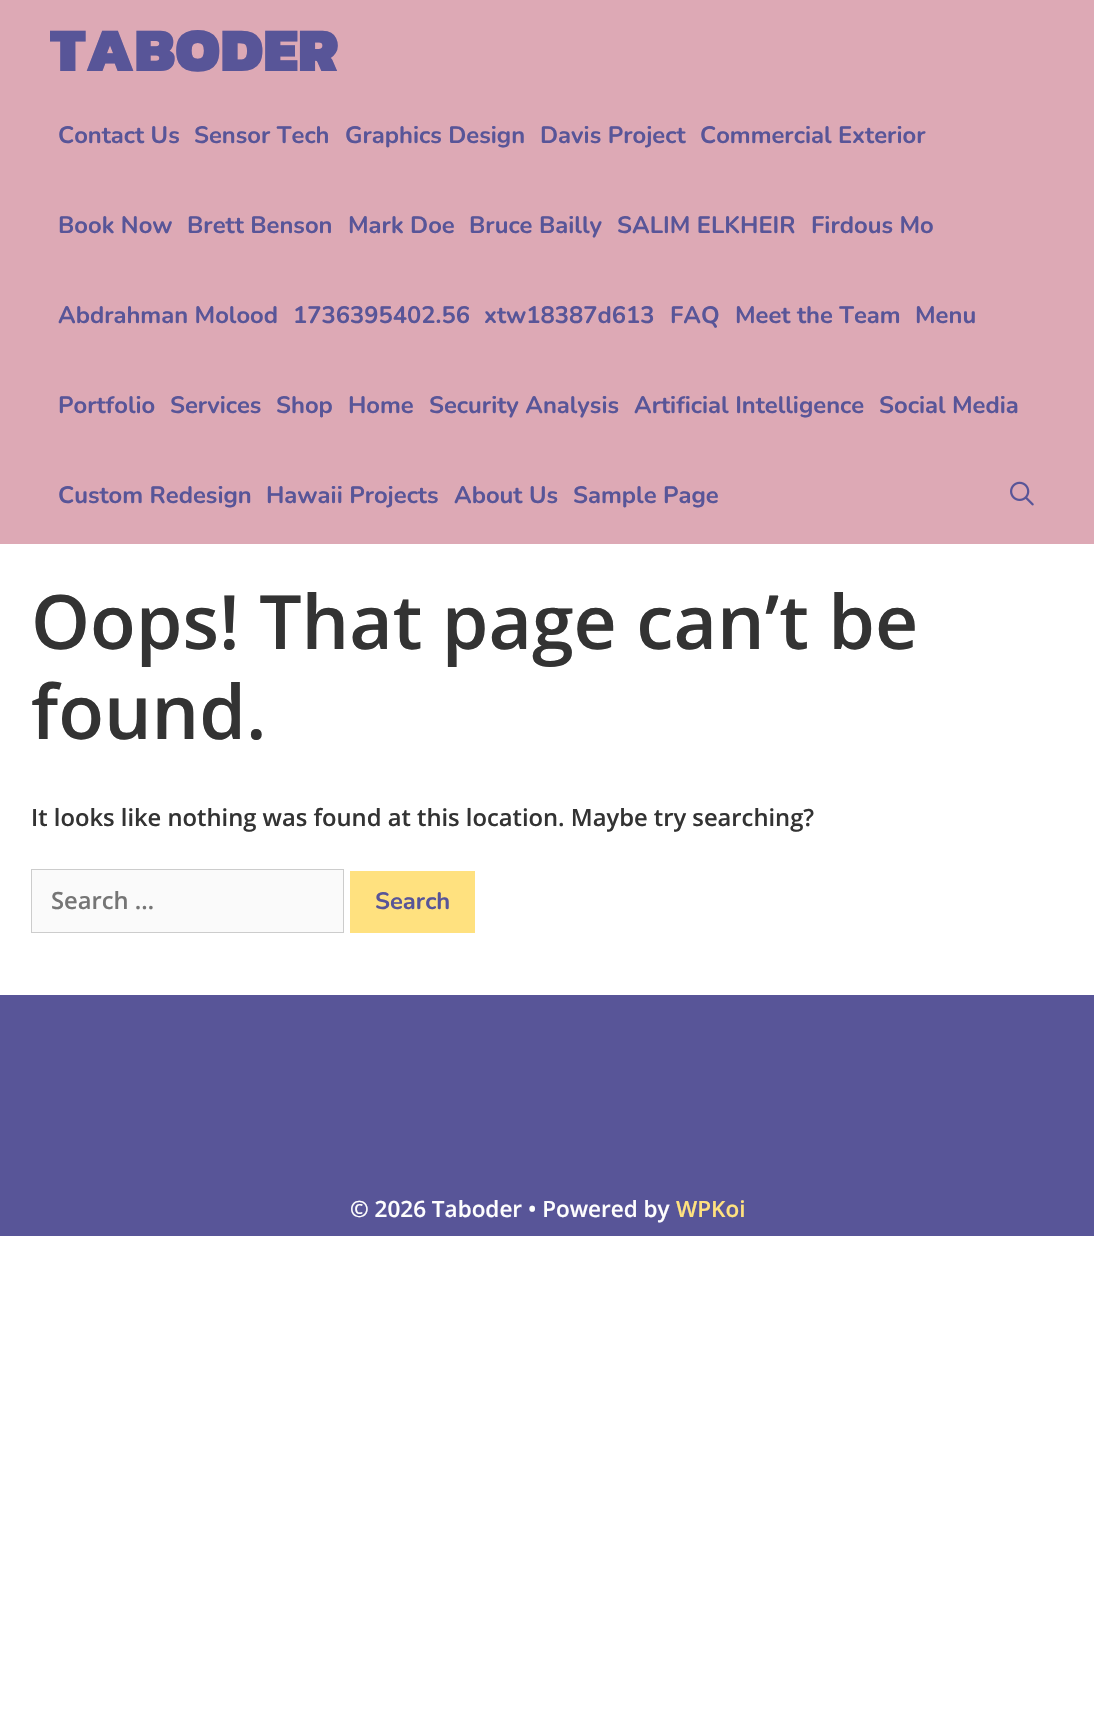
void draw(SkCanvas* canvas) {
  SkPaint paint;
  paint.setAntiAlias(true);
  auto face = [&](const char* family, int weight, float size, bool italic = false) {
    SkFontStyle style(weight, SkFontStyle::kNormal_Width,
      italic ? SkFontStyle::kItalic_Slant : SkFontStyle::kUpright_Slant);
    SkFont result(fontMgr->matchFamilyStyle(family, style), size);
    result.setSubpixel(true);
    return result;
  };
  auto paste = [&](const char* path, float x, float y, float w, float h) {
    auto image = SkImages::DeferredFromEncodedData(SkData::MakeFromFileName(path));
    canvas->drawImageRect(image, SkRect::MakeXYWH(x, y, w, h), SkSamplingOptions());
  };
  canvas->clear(0xffffffff);
  paint.setColor(0xffdda9b5);
  canvas->drawRect(SkRect::MakeXYWH(0, 0, 1094, 544), paint);
  paste("img/1.png", 1010, 481, 24, 25);
  paint.setColor(0xfffafafa);
  canvas->drawRect(SkRect::MakeXYWH(31.5f, 869.5f, 312, 63), paint);
  paint.setStroke(true);
  paint.setStrokeWidth(1);
  paint.setColor(0xffcccccc);
  canvas->drawRect(SkRect::MakeXYWH(31.5f, 869.5f, 312, 63), paint);
  paint.setStroke(false);
  paint.setColor(0xffffe17f);
  canvas->drawRect(SkRect::MakeXYWH(350, 871, 125, 62), paint);
  paint.setColor(0xff585598);
  canvas->drawRect(SkRect::MakeXYWH(0, 995, 1094, 241), paint);
  auto f0 = face("Kanit", 900, 62.5f);
  canvas->drawString("TABODER", 50, 71, f0, paint);
  auto f1 = face("Nunito", 700, 23.75f);
  {
    const struct { const char* s; float x, y; } items[] = {
      {"Contact Us", 58, 143},
      {"Sensor Tech", 194, 143},
      {"Graphics Design", 345, 143},
      {"Davis Project", 540, 143},
      {"Commercial Exterior", 700, 143},
      {"Book Now", 58, 233},
      {"Brett Benson", 187, 233},
      {"Mark Doe", 348, 233},
      {"Bruce Bailly", 469, 233},
      {"SALIM ELKHEIR", 617, 233},
      {"Firdous Mo", 811, 233},
      {"Abdrahman Molood", 58, 323},
      {"1736395402.56", 293, 323},
      {"xtw18387d613", 484, 323},
      {"FAQ", 670, 323},
      {"Meet the Team", 735, 323},
      {"Menu", 915, 323},
      {"Portfolio", 58, 413},
      {"Services", 170, 413},
      {"Shop", 276, 413},
      {"Home", 348, 413},
      {"Security Analysis", 429, 413},
      {"Artificial Intelligence", 634, 413},
      {"Social Media", 879, 413},
      {"Custom Redesign", 58, 503},
      {"Hawaii Projects", 266, 503},
      {"About Us", 454, 503},
      {"Sample Page", 573, 503},
    };
    for (auto [s, x, y] : items) {
      canvas->drawString(s, x, y, f1, paint);
    }
  }
  auto f2 = face("Open Sans", 600, 75);
  paint.setColor(0xff333333);
  canvas->drawString("Oops! That page can’t be", 31, 649, f2, paint);
  canvas->drawString("found.", 31, 739, f2, paint);
  auto f3 = face("Open Sans", 600, 23.75f);
  canvas->drawString("It looks like nothing was found at this location. Maybe try searching?", 31, 826, f3, paint);
  paint.setColor(0xff757575);
  canvas->drawString("Search …", 51, 909, f3, paint);
  paint.setColor(0xff585598);
  canvas->drawString("Search", 375, 909, f1, paint);
  auto f4 = face("Open Sans", 600, 22.5f);
  paint.setColor(0xfffefefe);
  canvas->drawString("© 2026 Taboder • Powered by", 350, 1217, f4, paint);
  paint.setColor(0xffffe17f);
  canvas->drawString("WPKoi", 676, 1217, f4, paint);
}
